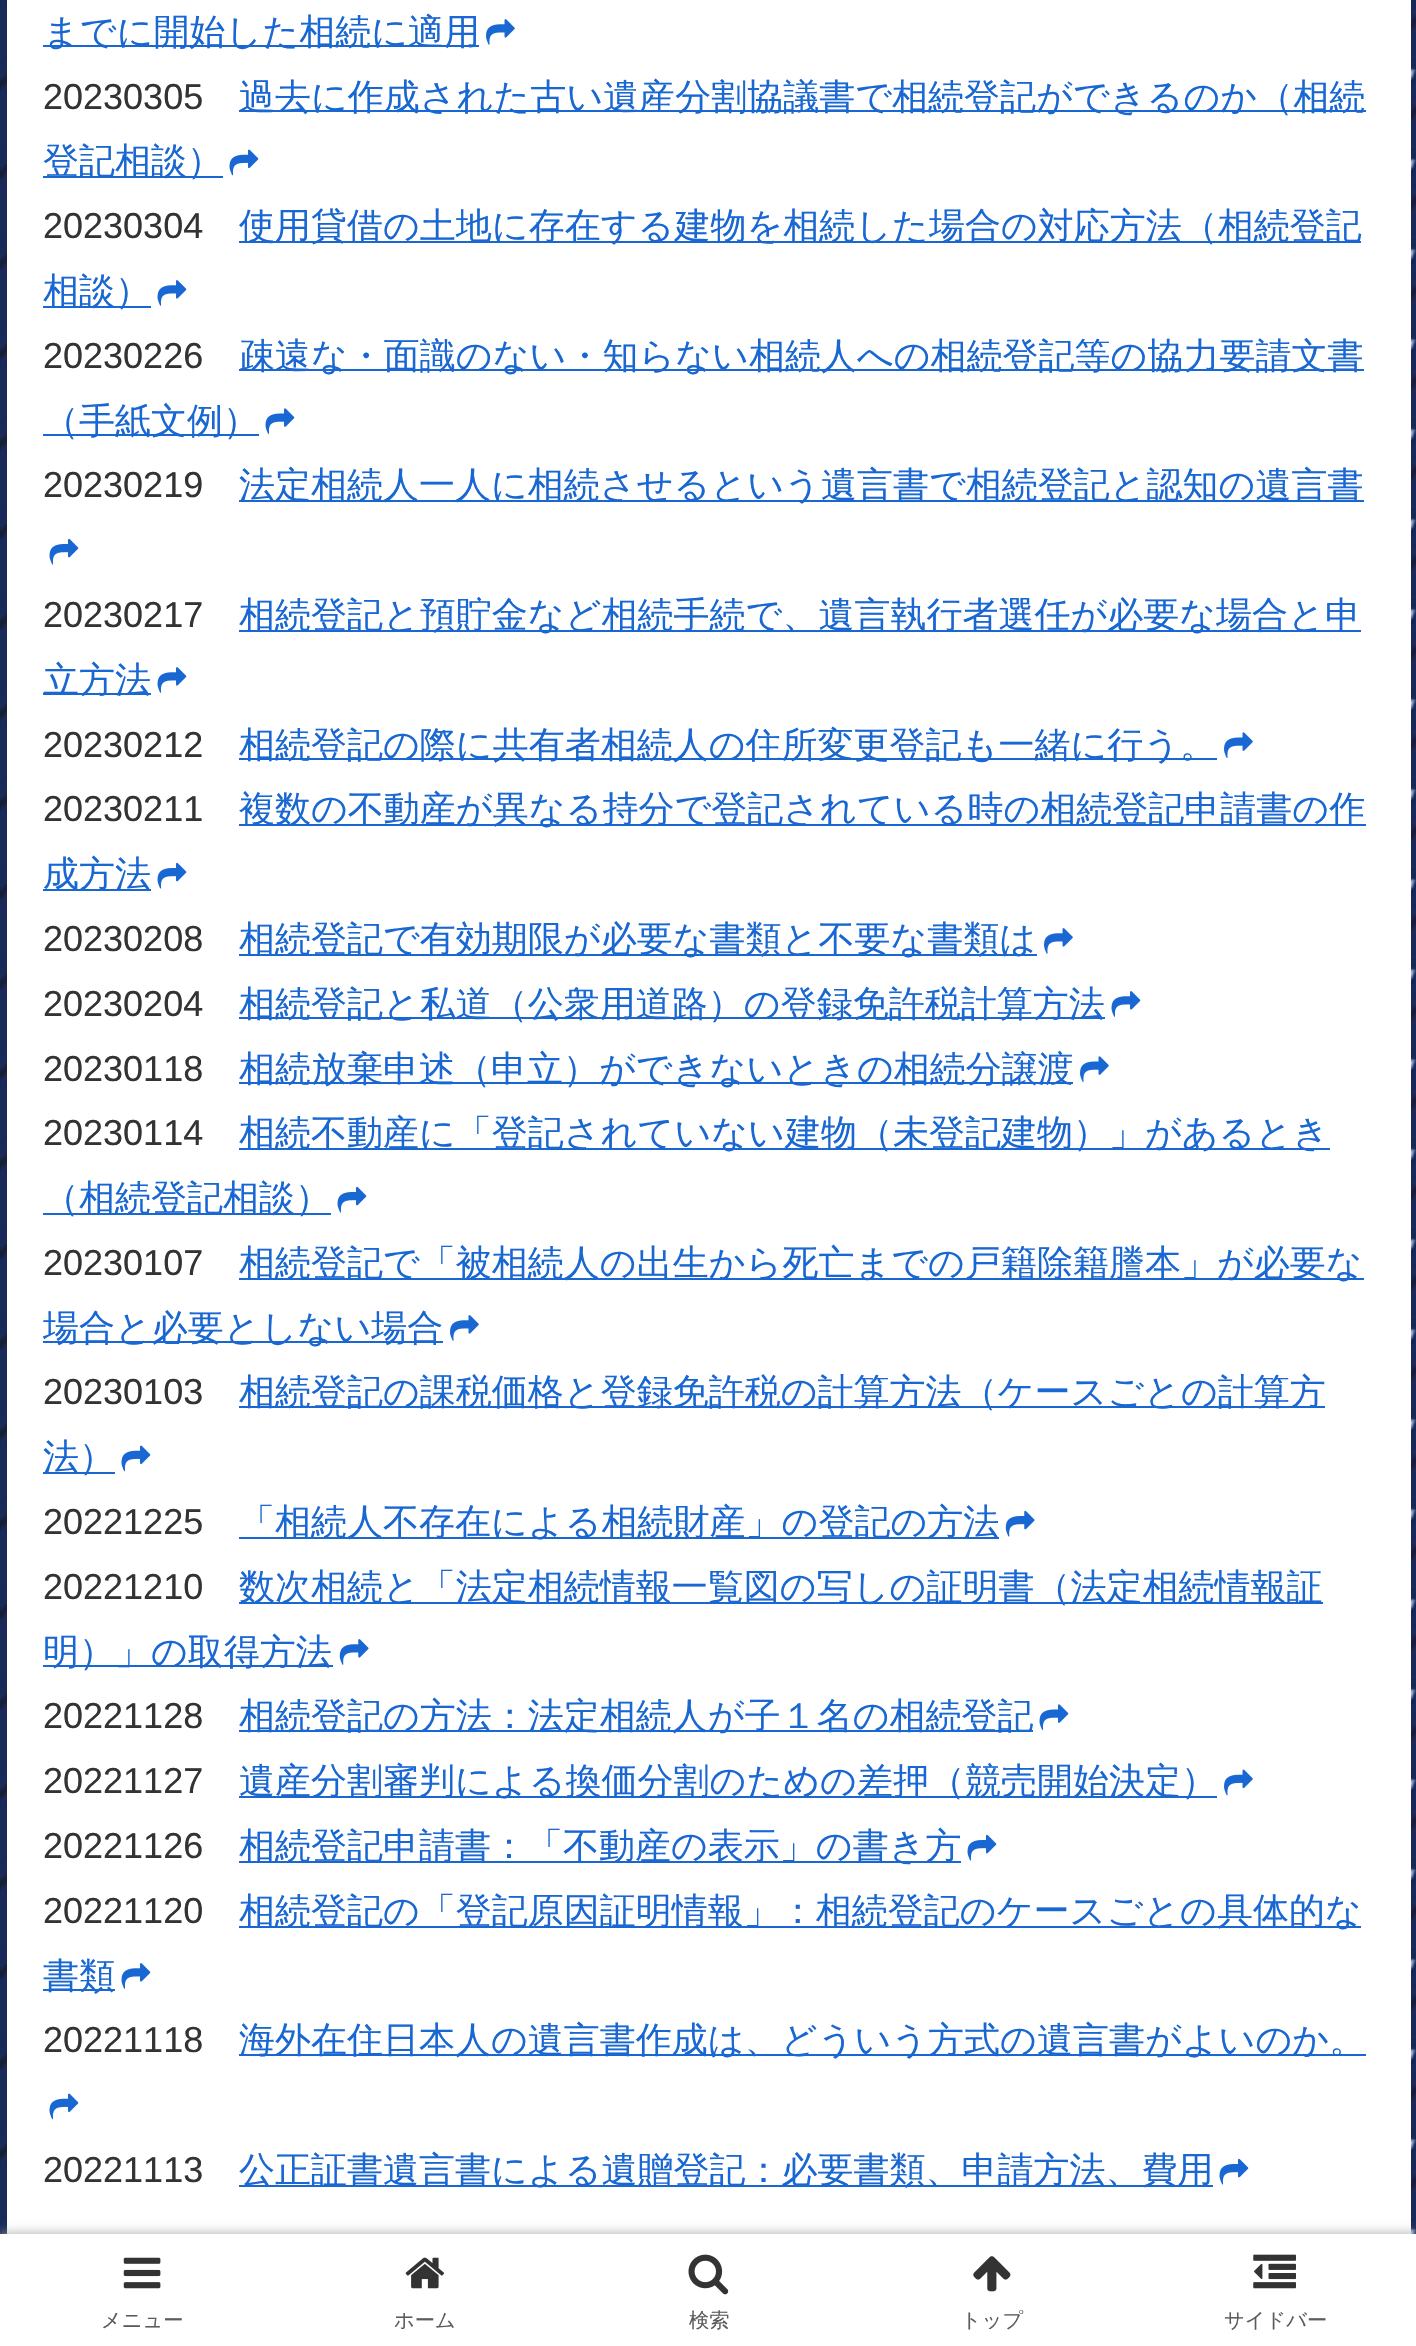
void draw(SkCanvas* canvas) {
  SkPaint paint;
  paint.setAntiAlias(true);
  auto face = [&](const char* family, int weight, float size, bool italic = false) {
    SkFontStyle style(weight, SkFontStyle::kNormal_Width,
      italic ? SkFontStyle::kItalic_Slant : SkFontStyle::kUpright_Slant);
    SkFont result(fontMgr->matchFamilyStyle(family, style), size);
    result.setSubpixel(true);
    return result;
  };
  auto paste = [&](const char* path, float x, float y, float w, float h) {
    auto image = SkImages::DeferredFromEncodedData(SkData::MakeFromFileName(path));
    canvas->drawImageRect(image, SkRect::MakeXYWH(x, y, w, h), SkSamplingOptions());
  };
  canvas->clear(0xffffffff);
  paste("img/1.png", 0, 0, 1416, 2234);
  paint.setColor(0xffffffff);
  canvas->drawRect(SkRect::MakeXYWH(7, 0, 1404, 2234), paint);
  paint.setColor(0xff1967d2);
  canvas->drawRect(SkRect::MakeXYWH(43, 45, 436, 2), paint);
  paste("img/2.png", 486, 19, 29, 26);
  canvas->drawRect(SkRect::MakeXYWH(239, 110, 1127, 2), paint);
  canvas->drawRect(SkRect::MakeXYWH(43, 176, 180, 2), paint);
  paste("img/3.png", 229, 149, 30, 27);
  canvas->drawRect(SkRect::MakeXYWH(239, 241, 1122, 2), paint);
  canvas->drawRect(SkRect::MakeXYWH(43, 306, 108, 2), paint);
  paste("img/4.png", 157, 280, 30, 26);
  canvas->drawRect(SkRect::MakeXYWH(239, 369, 1125, 2), paint);
  canvas->drawRect(SkRect::MakeXYWH(43, 434, 216, 2), paint);
  paste("img/5.png", 265, 408, 30, 26);
  canvas->drawRect(SkRect::MakeXYWH(239, 500, 1125, 2), paint);
  paste("img/6.png", 49, 538, 30, 27);
  canvas->drawRect(SkRect::MakeXYWH(239, 630, 1122, 2), paint);
  canvas->drawRect(SkRect::MakeXYWH(43, 693, 108, 2), paint);
  paste("img/4.png", 157, 667, 30, 26);
  canvas->drawRect(SkRect::MakeXYWH(239, 758, 978, 2), paint);
  paste("img/7.png", 1224, 732, 29, 26);
  canvas->drawRect(SkRect::MakeXYWH(239, 824, 1127, 2), paint);
  canvas->drawRect(SkRect::MakeXYWH(43, 889, 108, 2), paint);
  paste("img/6.png", 157, 862, 30, 27);
  canvas->drawRect(SkRect::MakeXYWH(239, 954, 798, 2), paint);
  paste("img/2.png", 1044, 928, 29, 26);
  canvas->drawRect(SkRect::MakeXYWH(239, 1017, 866, 2), paint);
  paste("img/4.png", 1111, 991, 30, 26);
  canvas->drawRect(SkRect::MakeXYWH(239, 1082, 834, 2), paint);
  paste("img/7.png", 1080, 1056, 29, 26);
  canvas->drawRect(SkRect::MakeXYWH(239, 1148, 1091, 2), paint);
  canvas->drawRect(SkRect::MakeXYWH(43, 1213, 288, 2), paint);
  paste("img/6.png", 337, 1186, 30, 27);
  canvas->drawRect(SkRect::MakeXYWH(239, 1278, 1125, 2), paint);
  canvas->drawRect(SkRect::MakeXYWH(43, 1341, 400, 2), paint);
  paste("img/2.png", 450, 1315, 29, 26);
  canvas->drawRect(SkRect::MakeXYWH(239, 1406, 1086, 2), paint);
  canvas->drawRect(SkRect::MakeXYWH(43, 1472, 72, 2), paint);
  paste("img/3.png", 121, 1445, 30, 27);
  canvas->drawRect(SkRect::MakeXYWH(239, 1537, 760, 2), paint);
  paste("img/8.png", 1005, 1510, 30, 27);
  canvas->drawRect(SkRect::MakeXYWH(239, 1602, 1084, 2), paint);
  canvas->drawRect(SkRect::MakeXYWH(43, 1665, 290, 2), paint);
  paste("img/9.png", 339, 1639, 30, 26);
  canvas->drawRect(SkRect::MakeXYWH(239, 1730, 794, 2), paint);
  paste("img/5.png", 1039, 1704, 30, 26);
  canvas->drawRect(SkRect::MakeXYWH(239, 1796, 978, 2), paint);
  paste("img/10.png", 1224, 1769, 29, 27);
  canvas->drawRect(SkRect::MakeXYWH(239, 1861, 722, 2), paint);
  paste("img/6.png", 967, 1834, 30, 27);
  canvas->drawRect(SkRect::MakeXYWH(239, 1926, 1122, 2), paint);
  canvas->drawRect(SkRect::MakeXYWH(43, 1989, 72, 2), paint);
  paste("img/4.png", 121, 1963, 30, 26);
  canvas->drawRect(SkRect::MakeXYWH(239, 2054, 1127, 2), paint);
  paste("img/3.png", 49, 2093, 30, 27);
  canvas->drawRect(SkRect::MakeXYWH(239, 2185, 974, 2), paint);
  paste("img/6.png", 1219, 2158, 30, 27);
  paint.setColor(0xffa9a9a9);
  paint.setMaskFilter(SkMaskFilter::MakeBlur(kNormal_SkBlurStyle, 5.5f));
  canvas->drawRect(SkRect::MakeXYWH(0, 2234, 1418, 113), paint);
  paint.setMaskFilter(nullptr);
  paint.setColor(0xffffffff);
  canvas->drawRect(SkRect::MakeXYWH(0, 2234, 1416, 112), paint);
  paste("img/11.png", 123, 2257, 38, 32);
  paste("img/12.png", 405, 2257, 39, 32);
  paste("img/13.png", 688, 2254, 41, 41);
  paste("img/14.png", 973, 2256, 38, 36);
  paste("img/15.png", 1253, 2254, 43, 35);
  auto f0 = face("WenQuanYi Zen Hei", 500, 36);
  paint.setColor(0xff1967d2);
  {
    const struct { const char* s; float x, y; } items[] = {
      {"までに開始した相続に適用", 43, 44},
      {"過去に作成された古い遺産分割協議書で相続登記ができるのか（相続", 239, 109},
      {"登記相談）", 43, 173},
    };
    for (auto [s, x, y] : items) {
      canvas->drawString(s, x, y, f0, paint);
    }
  }
  auto f1 = face("Liberation Sans", 400, 36);
  paint.setColor(0xff333333);
  canvas->drawString("20230305", 43, 109, f1, paint);
  paint.setColor(0xff1967d2);
  canvas->drawString("使用貸借の土地に存在する建物を相続した場合の対応方法（相続登記", 239, 238, f0, paint);
  canvas->drawString("相談）", 43, 303, f0, paint);
  paint.setColor(0xff333333);
  canvas->drawString("20230304", 43, 238, f1, paint);
  paint.setColor(0xff1967d2);
  canvas->drawString("疎遠な・面識のない・知らない相続人への相続登記等の協力要請文書", 239, 368, f0, paint);
  canvas->drawString("（手紙文例）", 43, 433, f0, paint);
  paint.setColor(0xff333333);
  canvas->drawString("20230226", 43, 368, f1, paint);
  canvas->drawString("20230219", 43, 497, f1, paint);
  paint.setColor(0xff1967d2);
  {
    const struct { const char* s; float x, y; } items[] = {
      {"法定相続人一人に相続させるという遺言書で相続登記と認知の遺言書", 239, 497},
      {"相続登記と預貯金など相続手続で、遺言執行者選任が必要な場合と申", 239, 627},
      {"立方法", 43, 692},
    };
    for (auto [s, x, y] : items) {
      canvas->drawString(s, x, y, f0, paint);
    }
  }
  paint.setColor(0xff333333);
  canvas->drawString("20230217", 43, 627, f1, paint);
  canvas->drawString("20230212", 43, 757, f1, paint);
  paint.setColor(0xff1967d2);
  {
    const struct { const char* s; float x, y; } items[] = {
      {"相続登記の際に共有者相続人の住所変更登記も一緒に行う。", 239, 757},
      {"複数の不動産が異なる持分で登記されている時の相続登記申請書の作", 239, 821},
      {"成方法", 43, 886},
    };
    for (auto [s, x, y] : items) {
      canvas->drawString(s, x, y, f0, paint);
    }
  }
  paint.setColor(0xff333333);
  canvas->drawString("20230211", 43, 821, f1, paint);
  canvas->drawString("20230208", 43, 951, f1, paint);
  paint.setColor(0xff1967d2);
  canvas->drawString("相続登記で有効期限が必要な書類と不要な書類は", 239, 951, f0, paint);
  paint.setColor(0xff333333);
  canvas->drawString("20230204", 43, 1016, f1, paint);
  paint.setColor(0xff1967d2);
  canvas->drawString("相続登記と私道（公衆用道路）の登録免許税計算方法", 239, 1016, f0, paint);
  paint.setColor(0xff333333);
  canvas->drawString("20230118", 43, 1081, f1, paint);
  paint.setColor(0xff1967d2);
  {
    const struct { const char* s; float x, y; } items[] = {
      {"相続放棄申述（申立）ができないときの相続分譲渡", 239, 1081},
      {"相続不動産に「登記されていない建物（未登記建物）」があるとき", 239, 1145},
      {"（相続登記相談）", 43, 1210},
    };
    for (auto [s, x, y] : items) {
      canvas->drawString(s, x, y, f0, paint);
    }
  }
  paint.setColor(0xff333333);
  canvas->drawString("20230114", 43, 1145, f1, paint);
  paint.setColor(0xff1967d2);
  canvas->drawString("相続登記で「被相続人の出生から死亡までの戸籍除籍謄本」が必要な", 239, 1275, f0, paint);
  canvas->drawString("場合と必要としない場合", 43, 1340, f0, paint);
  paint.setColor(0xff333333);
  canvas->drawString("20230107", 43, 1275, f1, paint);
  paint.setColor(0xff1967d2);
  canvas->drawString("相続登記の課税価格と登録免許税の計算方法（ケースごとの計算方", 239, 1404, f0, paint);
  canvas->drawString("法）", 43, 1469, f0, paint);
  paint.setColor(0xff333333);
  canvas->drawString("20230103", 43, 1404, f1, paint);
  canvas->drawString("20221225", 43, 1534, f1, paint);
  paint.setColor(0xff1967d2);
  {
    const struct { const char* s; float x, y; } items[] = {
      {"「相続人不存在による相続財産」の登記の方法", 239, 1534},
      {"数次相続と「法定相続情報一覧図の写しの証明書（法定相続情報証", 239, 1599},
      {"明）」の取得方法", 43, 1664},
    };
    for (auto [s, x, y] : items) {
      canvas->drawString(s, x, y, f0, paint);
    }
  }
  paint.setColor(0xff333333);
  canvas->drawString("20221210", 43, 1599, f1, paint);
  canvas->drawString("20221128", 43, 1728, f1, paint);
  paint.setColor(0xff1967d2);
  canvas->drawString("相続登記の方法：法定相続人が子１名の相続登記", 239, 1728, f0, paint);
  paint.setColor(0xff333333);
  canvas->drawString("20221127", 43, 1793, f1, paint);
  paint.setColor(0xff1967d2);
  canvas->drawString("遺産分割審判による換価分割のための差押（競売開始決定）", 239, 1793, f0, paint);
  paint.setColor(0xff333333);
  canvas->drawString("20221126", 43, 1858, f1, paint);
  paint.setColor(0xff1967d2);
  {
    const struct { const char* s; float x, y; } items[] = {
      {"相続登記申請書：「不動産の表示」の書き方", 239, 1858},
      {"相続登記の「登記原因証明情報」：相続登記のケースごとの具体的な", 239, 1923},
      {"書類", 43, 1988},
    };
    for (auto [s, x, y] : items) {
      canvas->drawString(s, x, y, f0, paint);
    }
  }
  paint.setColor(0xff333333);
  canvas->drawString("20221120", 43, 1923, f1, paint);
  canvas->drawString("20221118", 43, 2052, f1, paint);
  paint.setColor(0xff1967d2);
  canvas->drawString("海外在住日本人の遺言書作成は、どういう方式の遺言書がよいのか。", 239, 2052, f0, paint);
  paint.setColor(0xff333333);
  canvas->drawString("20221113", 43, 2182, f1, paint);
  paint.setColor(0xff1967d2);
  canvas->drawString("公正証書遺言書による遺贈登記：必要書類、申請方法、費用", 239, 2182, f0, paint);
  auto f2 = face("WenQuanYi Zen Hei", 500, 20.25f);
  paint.setColor(0xff5c5c5c);
  {
    const struct { const char* s; float x, y; } items[] = {
      {"メニュー", 101, 2327},
      {"ホーム", 394, 2327},
      {"検索", 689, 2327},
      {"トップ", 961, 2327},
      {"サイドバー", 1224, 2327},
    };
    for (auto [s, x, y] : items) {
      canvas->drawString(s, x, y, f2, paint);
    }
  }
}
